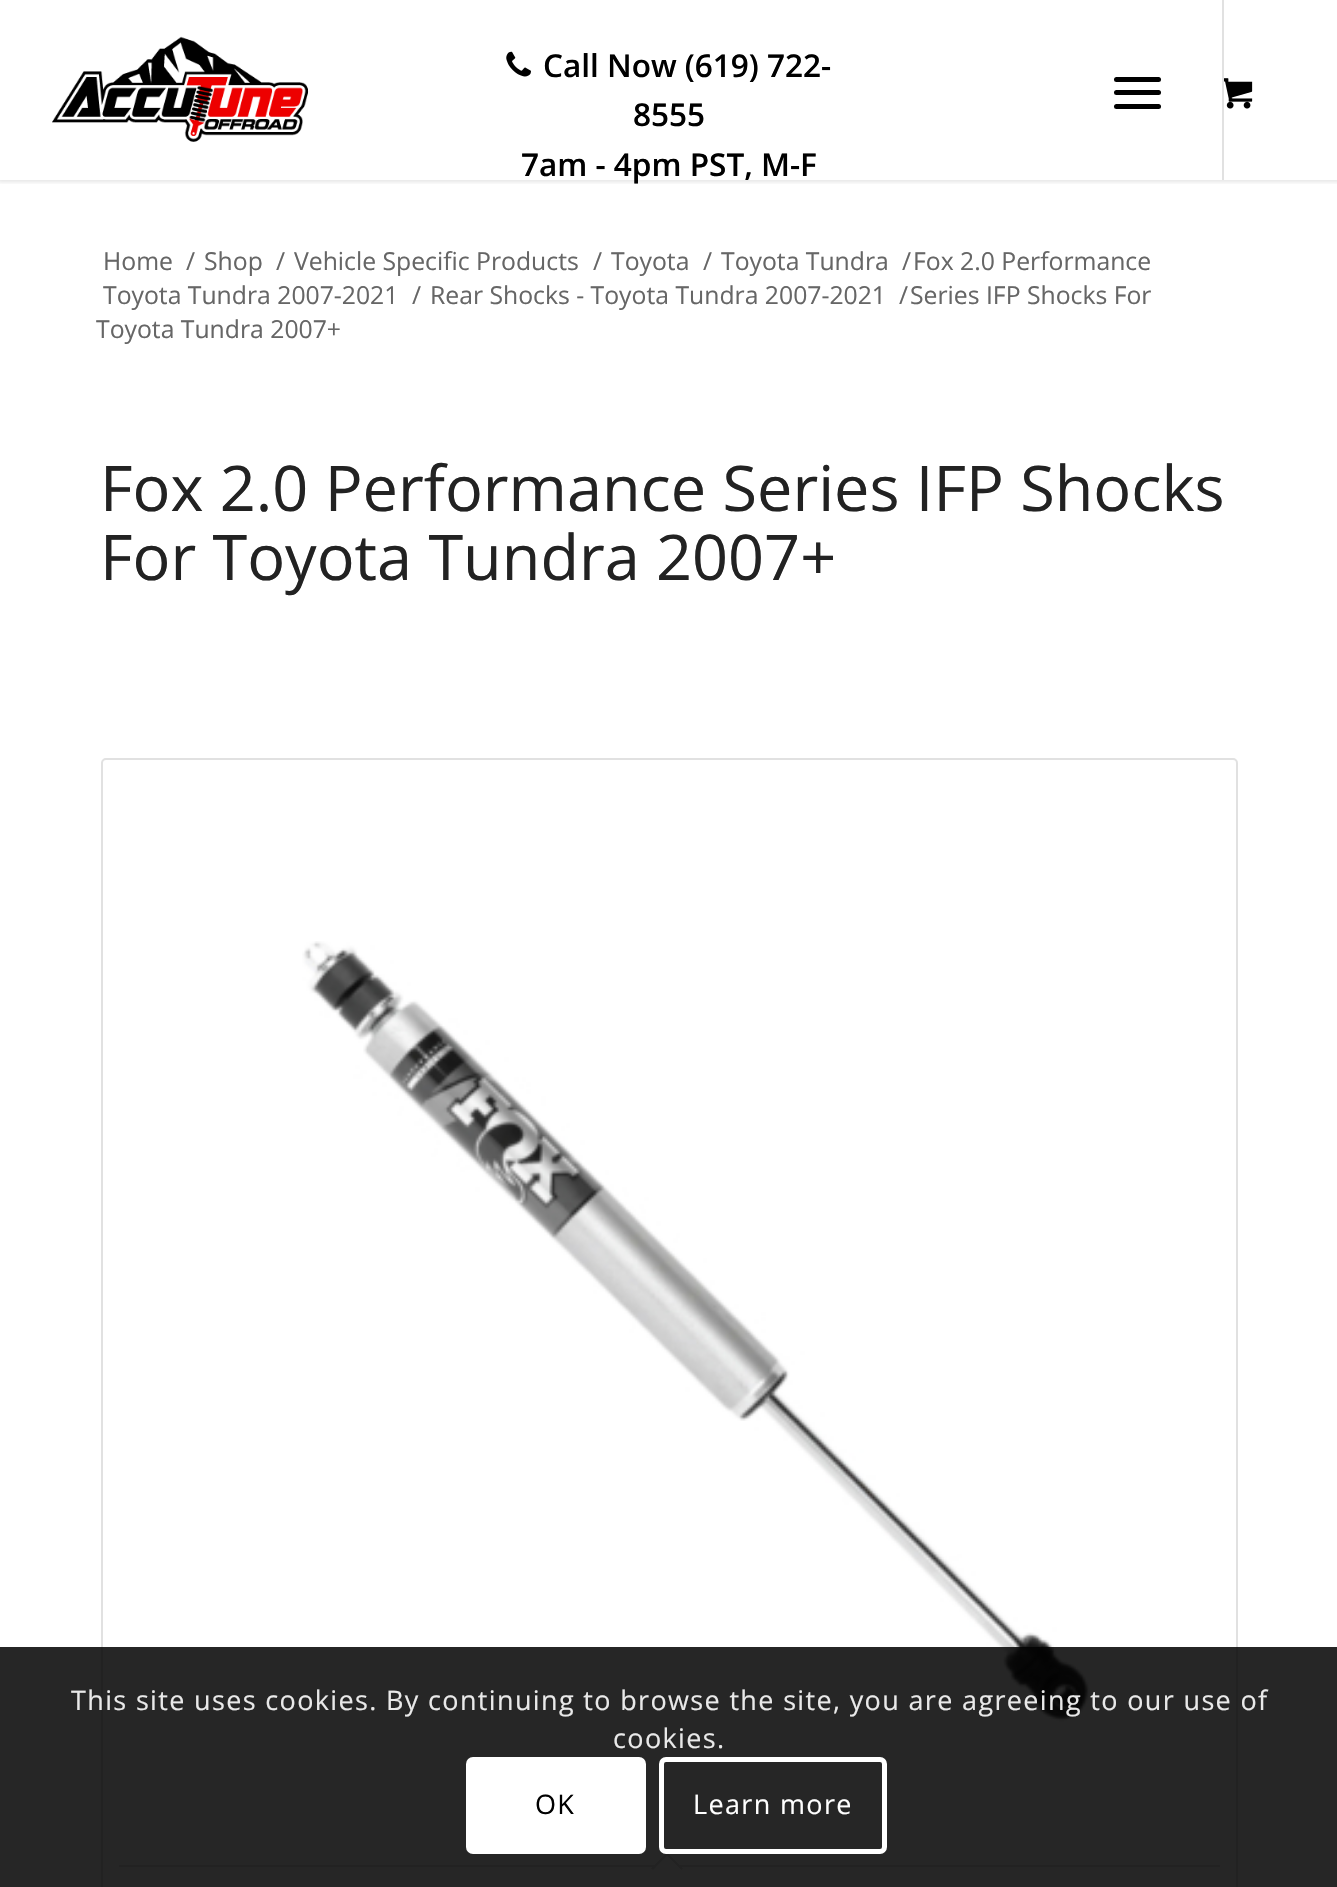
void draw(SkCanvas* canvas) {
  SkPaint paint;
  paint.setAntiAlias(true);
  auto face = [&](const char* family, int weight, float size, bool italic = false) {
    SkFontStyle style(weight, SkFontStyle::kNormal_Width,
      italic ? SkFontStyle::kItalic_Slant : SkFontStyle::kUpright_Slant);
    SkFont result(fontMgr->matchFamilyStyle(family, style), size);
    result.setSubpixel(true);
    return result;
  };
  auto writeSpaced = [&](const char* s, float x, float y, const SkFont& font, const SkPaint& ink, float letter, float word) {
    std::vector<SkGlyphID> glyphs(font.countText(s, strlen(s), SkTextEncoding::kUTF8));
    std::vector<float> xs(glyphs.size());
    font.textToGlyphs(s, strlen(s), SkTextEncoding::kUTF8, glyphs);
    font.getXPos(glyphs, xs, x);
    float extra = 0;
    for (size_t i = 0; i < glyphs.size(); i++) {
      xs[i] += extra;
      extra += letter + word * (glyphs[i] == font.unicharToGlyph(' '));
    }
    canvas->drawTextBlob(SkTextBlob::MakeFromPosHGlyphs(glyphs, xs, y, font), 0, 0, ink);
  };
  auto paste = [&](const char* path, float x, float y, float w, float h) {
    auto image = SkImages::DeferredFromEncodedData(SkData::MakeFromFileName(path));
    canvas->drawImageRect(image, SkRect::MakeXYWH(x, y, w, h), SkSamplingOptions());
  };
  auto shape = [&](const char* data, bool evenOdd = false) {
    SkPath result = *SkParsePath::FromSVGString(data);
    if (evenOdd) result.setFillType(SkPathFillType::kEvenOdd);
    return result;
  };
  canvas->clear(0xffffffff);
  canvas->save();
  canvas->clipRect(SkRect::MakeXYWH(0, 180, 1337, 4));
  paint.setColor(0x1a000000);
  paint.setMaskFilter(SkMaskFilter::MakeBlur(kNormal_SkBlurStyle, 2));
  canvas->drawRect(SkRect::MakeXYWH(-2, -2, 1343, 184), paint);
  paint.setMaskFilter(nullptr);
  canvas->restore();
  paste("img/1.png", 52, 36, 257, 106);
  paint.setColor(0xffe1e1e1);
  canvas->drawRect(SkRect::MakeXYWH(1222, 0, 2, 180), paint);
  paint.setColor(0xff000000);
  canvas->drawRoundRect(SkRect::MakeXYWH(1114, 90, 47, 5), 2.5f, 2.5f, paint);
  canvas->drawRoundRect(SkRect::MakeXYWH(1114, 77, 47, 5), 2.5f, 2.5f, paint);
  canvas->drawRoundRect(SkRect::MakeXYWH(1114, 104, 47, 5), 2.5f, 2.5f, paint);
  paste("img/2.png", 1224, 78, 29, 31);
  paste("img/3.png", 506, 51, 25, 26);
  paint.setStroke(true);
  paint.setStrokeWidth(2);
  paint.setColor(0xffe1e1e1);
  canvas->drawRoundRect(SkRect::MakeXYWH(102, 759, 1135, 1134), 4, 4, paint);
  paste("img/4.png", 302, 941, 788, 781);
  paint.setStroke(false);
  canvas->drawRect(SkRect::MakeXYWH(119, 1865, 1101, 2), paint);
  paint.setColor(0xffffffff);
  canvas->drawPath(shape("M667 1852.5L683 1868.5L667 1884L651 1868.5Z"), paint);
  paint.setColor(0xffe1e1e1);
  canvas->drawPath(shape("M667 1852.5L683 1868.5L681.5 1870L665.5 1854Z"), paint);
  canvas->drawPath(shape("M667 1852.5L668.5 1854L653 1870L651 1868.5Z"), paint);
  paint.setColor(0xd9000000);
  canvas->drawRect(SkRect::MakeXYWH(0, 1647, 1337, 240), paint);
  paint.setColor(0xffffffff);
  canvas->drawRoundRect(SkRect::MakeXYWH(466, 1757, 180, 97), 7, 7, paint);
  paint.setStroke(true);
  paint.setStrokeWidth(5);
  canvas->drawRoundRect(SkRect::MakeXYWH(661.5f, 1759.5f, 223, 92), 4.5f, 4.5f, paint);
  auto f0 = face("Open Sans", 600, 31.5f);
  paint.setStroke(false);
  paint.setColor(0xff000000);
  {
    const struct { const char* s; float x, y; } items[] = {
      {"Call Now (619) 722-", 543, 77},
      {"8555", 633, 126},
      {"7am - 4pm PST, M-F", 521, 176},
    };
    for (auto [s, x, y] : items) {
      canvas->drawString(s, x, y, f0, paint);
    }
  }
  auto f1 = face("Open Sans", 400, 24.75f);
  paint.setColor(0xff666666);
  {
    const struct { const char* s; float x, y; } items[] = {
      {"Home", 103, 270},
      {"/", 186, 270},
      {"Shop", 204, 270},
      {"/", 276, 270},
      {"Vehicle Specific Products", 294, 270},
      {"/", 593, 270},
      {"Toyota", 611, 270},
      {"/", 703, 270},
      {"Toyota Tundra", 721, 270},
      {"/", 902, 270},
      {"Fox 2.0 Performance", 913, 270},
      {"Toyota Tundra 2007-2021", 103, 304},
      {"/", 412, 304},
      {"Rear Shocks - Toyota Tundra 2007-2021", 430, 304},
      {"/", 899, 304},
      {"Series IFP Shocks For", 910, 304},
      {"Toyota Tundra 2007+", 96, 338},
    };
    for (auto [s, x, y] : items) {
      canvas->drawString(s, x, y, f1, paint);
    }
  }
  auto f2 = face("Open Sans", 400, 63);
  paint.setColor(0xff222222);
  canvas->drawString("Fox 2.0 Performance Series IFP Shocks", 100, 511, f2, paint);
  canvas->drawString("For Toyota Tundra 2007+", 100, 580, f2, paint);
  auto f3 = face("Open Sans", 400, 27);
  paint.setColor(0xffe9e9e9);
  writeSpaced("This site uses cookies. By continuing to browse the site, you are agreeing to our use of", 71, 1710, f3, paint, 1.35f, 0);
  writeSpaced("cookies.", 613, 1748, f3, paint, 1.35f, 0);
  paint.setColor(0xff000000);
  writeSpaced("OK", 535, 1814, f3, paint, 1.35f, 0);
  paint.setColor(0xffffffff);
  writeSpaced("Learn more", 693, 1814, f3, paint, 1.35f, 0);
}
